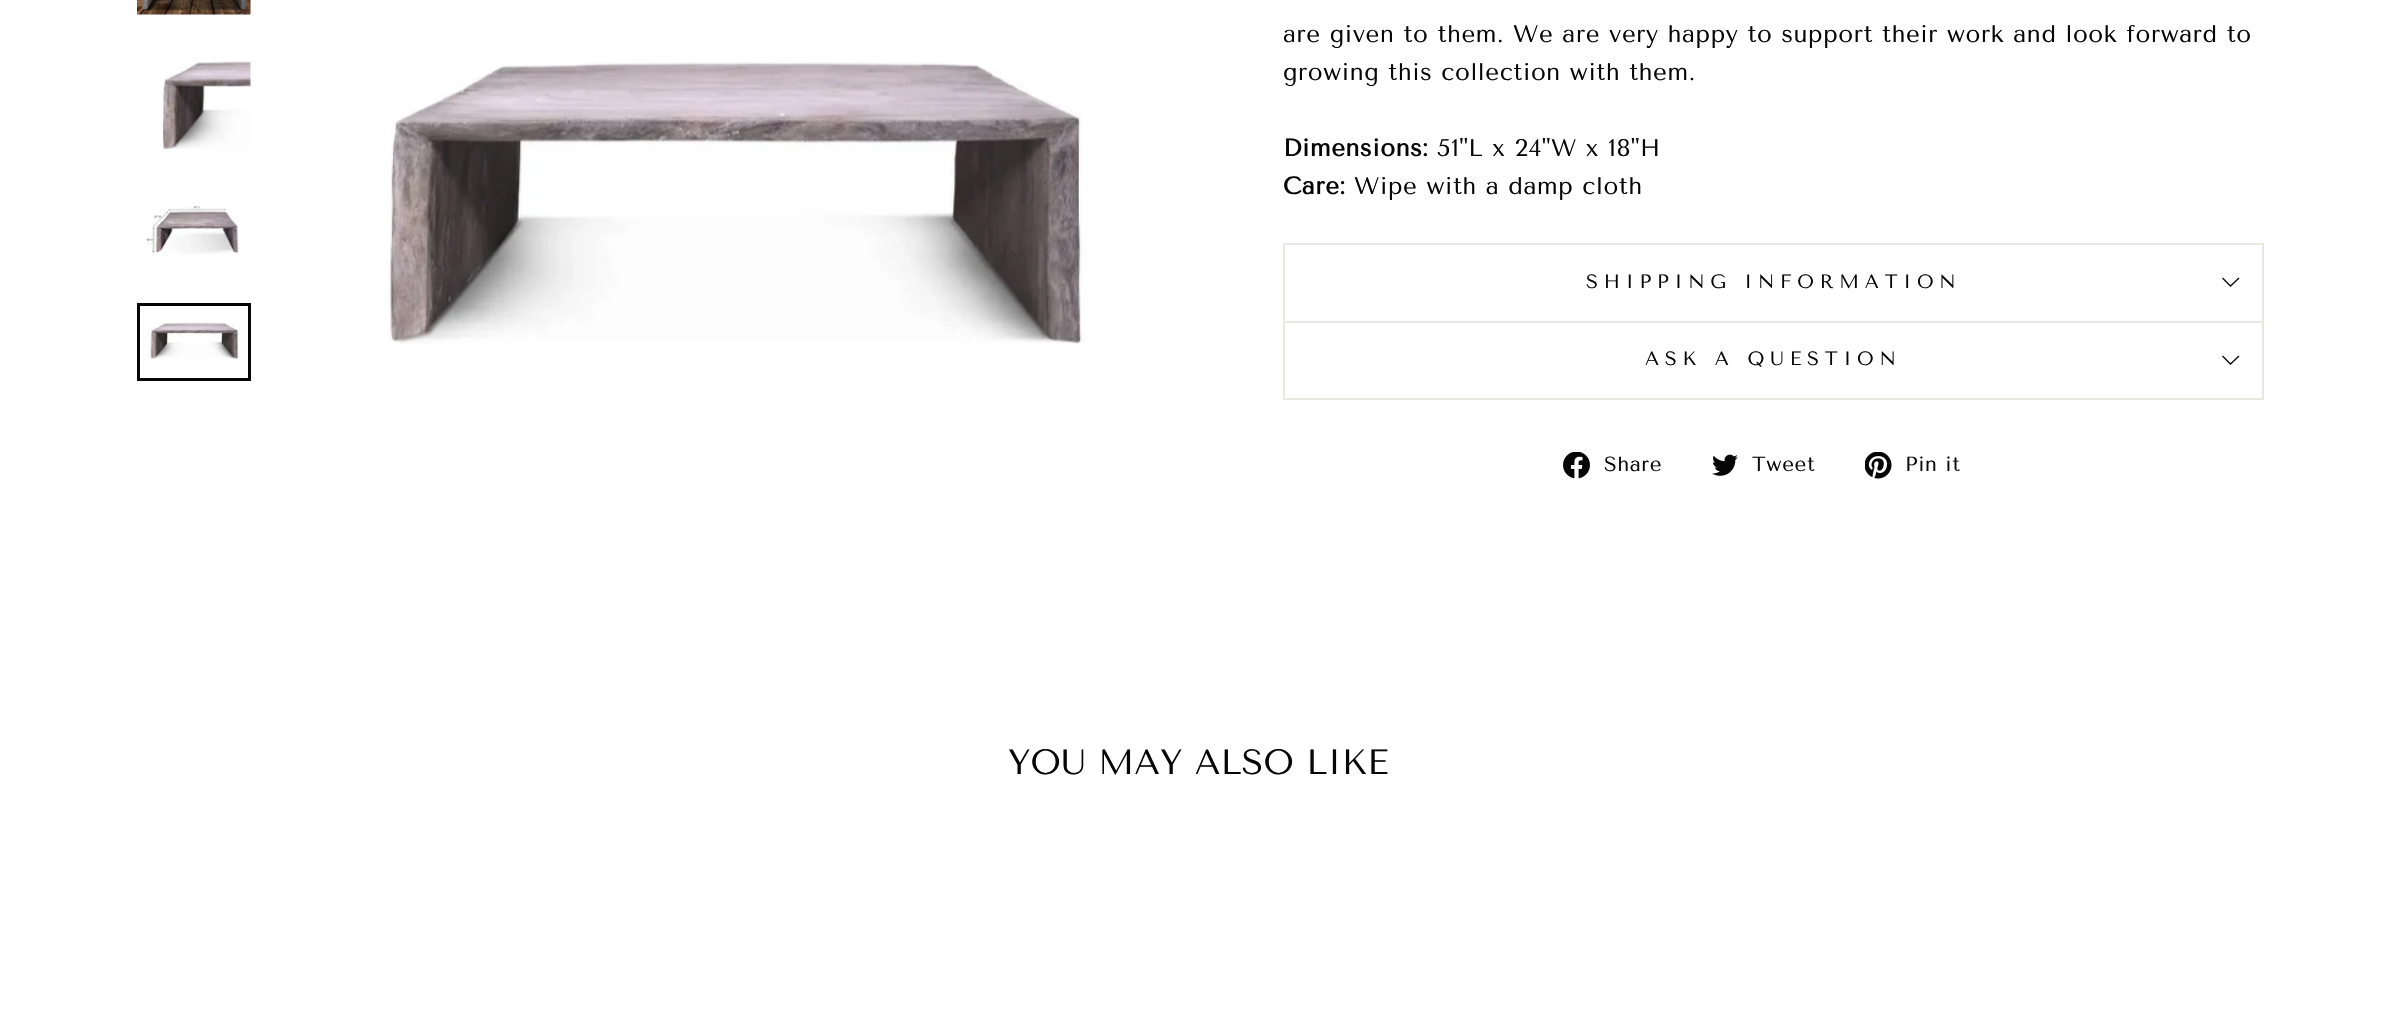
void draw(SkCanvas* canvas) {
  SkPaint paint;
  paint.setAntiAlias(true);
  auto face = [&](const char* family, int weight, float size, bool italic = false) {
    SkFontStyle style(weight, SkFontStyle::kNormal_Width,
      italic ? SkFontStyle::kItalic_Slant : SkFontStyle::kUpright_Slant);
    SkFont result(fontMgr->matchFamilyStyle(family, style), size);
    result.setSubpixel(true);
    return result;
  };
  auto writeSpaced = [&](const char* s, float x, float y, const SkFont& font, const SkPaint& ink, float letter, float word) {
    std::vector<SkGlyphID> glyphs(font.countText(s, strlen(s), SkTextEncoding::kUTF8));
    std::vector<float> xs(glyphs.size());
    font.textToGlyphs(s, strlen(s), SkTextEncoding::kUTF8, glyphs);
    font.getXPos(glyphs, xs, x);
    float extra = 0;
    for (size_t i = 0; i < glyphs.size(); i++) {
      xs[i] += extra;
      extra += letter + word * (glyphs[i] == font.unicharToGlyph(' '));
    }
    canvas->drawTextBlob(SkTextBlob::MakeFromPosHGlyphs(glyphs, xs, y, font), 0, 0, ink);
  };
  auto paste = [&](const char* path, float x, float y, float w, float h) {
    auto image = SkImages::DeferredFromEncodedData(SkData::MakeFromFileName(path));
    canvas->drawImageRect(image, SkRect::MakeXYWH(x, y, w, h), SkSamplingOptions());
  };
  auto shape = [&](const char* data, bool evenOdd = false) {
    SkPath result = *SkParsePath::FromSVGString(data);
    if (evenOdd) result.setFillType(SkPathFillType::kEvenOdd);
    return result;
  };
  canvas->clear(0xffffffff);
  paste("img/1.png", 137, 0, 114, 15);
  paste("img/2.png", 162, 61, 89, 89);
  paste("img/3.png", 145, 206, 94, 49);
  paste("img/4.png", 148, 322, 91, 38);
  paint.setStroke(true);
  paint.setStrokeWidth(3);
  paint.setColor(0xff060606);
  canvas->drawRect(SkRect::MakeXYWH(138.5f, 304.5f, 111, 75), paint);
  paste("img/5.png", 388, 61, 696, 284);
  paint.setStroke(false);
  {
    const struct { float x, y, w, h; SkColor color; } items[] = {
      {1283, 321, 981, 2, 0xffe8e8e1},
      {1283, 243, 981, 2, 0xffe8e8e1},
      {2262, 243, 2, 78, 0xffe8e8e1},
      {1283, 243, 2, 78, 0xffe8e8e1},
    };
    for (auto [x, y, w, h, color] : items) {
      paint.setColor(color);
      canvas->drawRect(SkRect::MakeXYWH(x, y, w, h), paint);
    }
  }
  paint.setStroke(true);
  paint.setStrokeWidth(1.3f);
  paint.setColor(0xff060606);
  canvas->drawPath(shape("M2222.5 278L2230.5 286L2239 278"), paint);
  paint.setStroke(false);
  {
    const struct { float x, y, w, h; SkColor color; } items[] = {
      {1283, 398, 981, 2, 0xffe8e8e1},
      {2262, 323, 2, 75, 0xffe8e8e1},
      {1283, 323, 2, 75, 0xffe8e8e1},
    };
    for (auto [x, y, w, h, color] : items) {
      paint.setColor(color);
      canvas->drawRect(SkRect::MakeXYWH(x, y, w, h), paint);
    }
  }
  paint.setStroke(true);
  paint.setColor(0xff060606);
  canvas->drawPath(shape("M2222.5 356L2230.5 364L2239 356"), paint);
  paste("img/6.png", 1563, 452, 27, 27);
  paste("img/7.png", 1712, 454, 26, 22);
  paste("img/8.png", 1865, 452, 27, 27);
  auto f0 = face("Tenor Sans", 400, 24);
  paint.setStroke(false);
  writeSpaced("are given to them. We are very happy to support their work and look forward to", 1283, 42, f0, paint, 0.6f, 0);
  writeSpaced("growing this collection with them.", 1283, 80, f0, paint, 0.6f, 0);
  auto f1 = face("Tenor Sans", 700, 24);
  writeSpaced("Dimensions:", 1283, 156, f1, paint, 0.6f, 0);
  writeSpaced("51\"L x 24\"W x 18\"H", 1437, 156, f0, paint, 0.6f, 0);
  writeSpaced("Care:", 1283, 194, f1, paint, 0.6f, 0);
  writeSpaced("Wipe with a damp cloth", 1354, 194, f0, paint, 0.6f, 0);
  auto f2 = face("Tenor Sans", 400, 19.25f);
  writeSpaced("SHIPPING INFORMATION", 1586, 288, f2, paint, 5.75f, 0);
  writeSpaced("ASK A QUESTION", 1645, 365, f2, paint, 5.75f, 0);
  auto f3 = face("Tenor Sans", 400, 20.5f);
  {
    const struct { const char* s; float x, y; } items[] = {
      {"Share", 1604, 471},
      {"Tweet", 1752, 471},
      {"Pin it", 1905, 471},
    };
    for (auto [s, x, y] : items) {
      writeSpaced(s, x, y, f3, paint, 0.6f, 0);
    }
  }
  auto f4 = face("Tenor Sans", 400, 35.1f);
  canvas->drawString("YOU MAY ALSO LIKE", 1008, 774, f4, paint);
}
